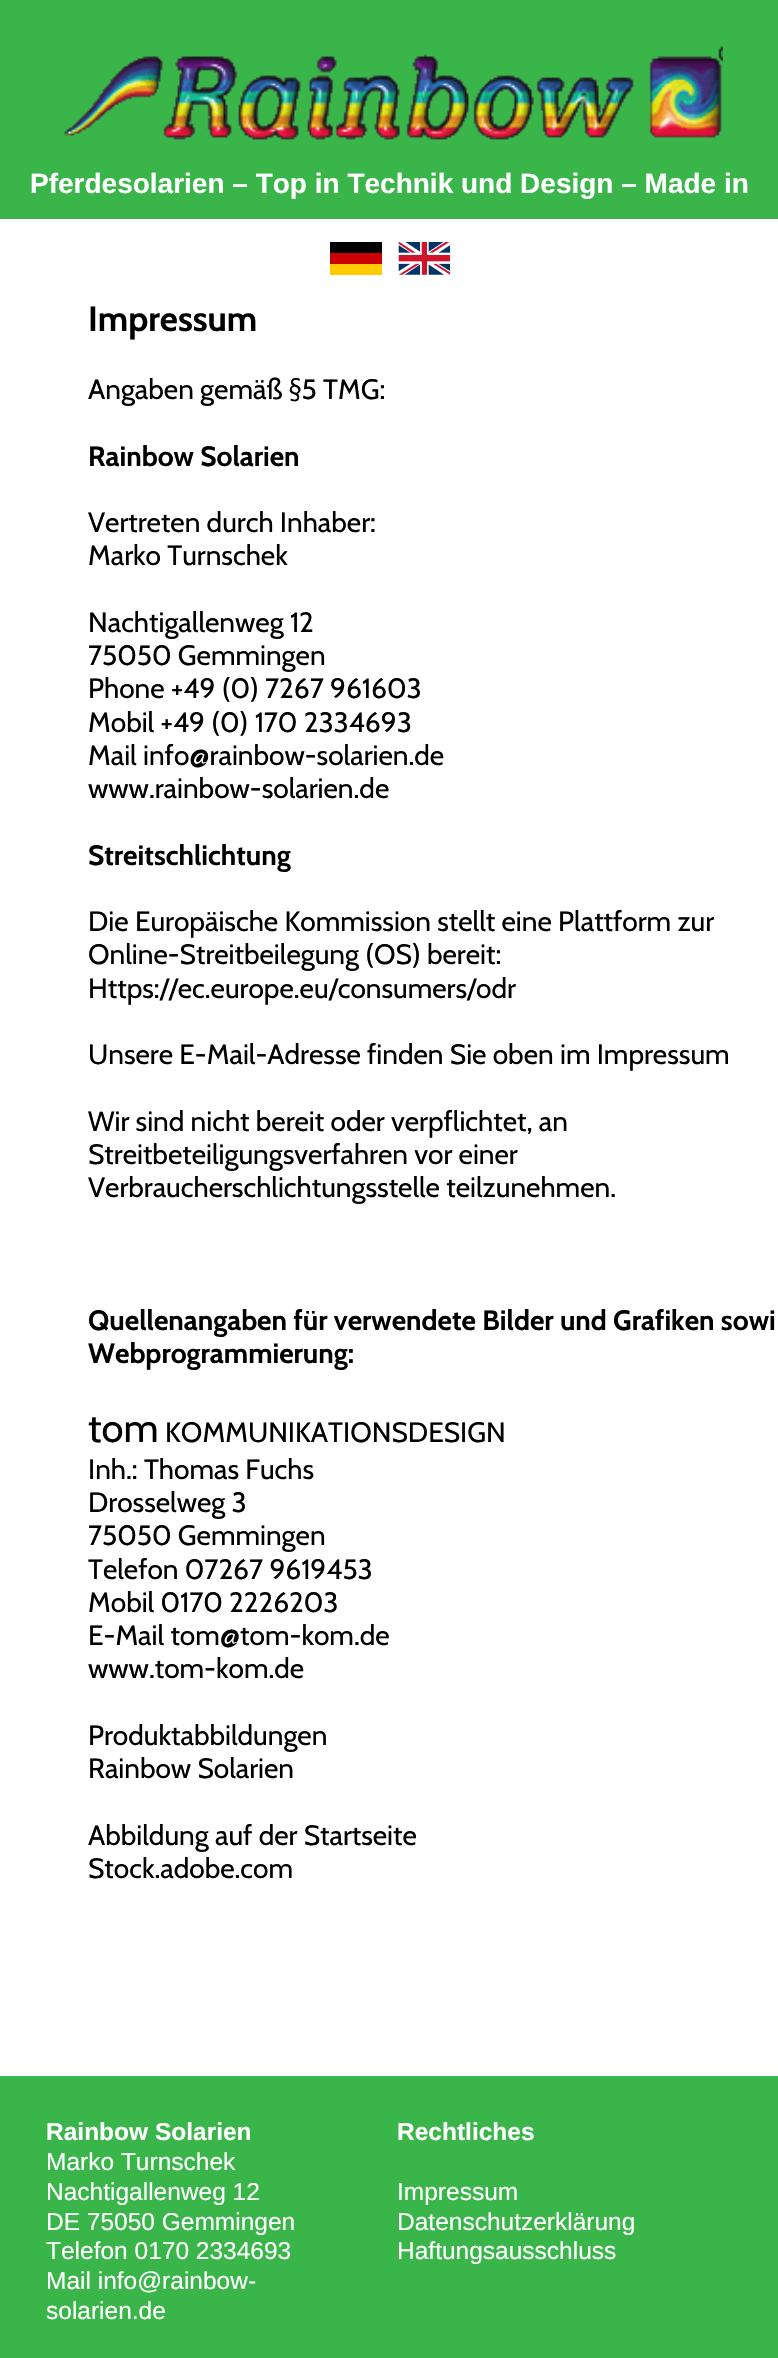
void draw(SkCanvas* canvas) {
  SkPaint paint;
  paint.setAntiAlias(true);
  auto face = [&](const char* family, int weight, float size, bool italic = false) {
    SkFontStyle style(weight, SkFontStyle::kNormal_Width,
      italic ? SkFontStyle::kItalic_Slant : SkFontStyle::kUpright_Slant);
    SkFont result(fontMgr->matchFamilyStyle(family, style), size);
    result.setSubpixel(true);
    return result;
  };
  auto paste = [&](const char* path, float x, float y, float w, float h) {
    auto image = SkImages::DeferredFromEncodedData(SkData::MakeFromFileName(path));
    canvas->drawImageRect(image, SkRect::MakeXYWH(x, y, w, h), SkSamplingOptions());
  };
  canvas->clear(0xffffffff);
  paint.setColor(0xff39b54a);
  canvas->drawRect(SkRect::MakeXYWH(0, 0, 778, 219), paint);
  paste("img/1.png", 64, 45, 659, 95);
  {
    const struct { float x, y, w, h; SkColor color; } items[] = {
      {330, 264, 52, 11, 0xffffcc00},
      {330, 253, 52, 11, 0xffcc0000},
      {330, 242, 52, 11, 0xff000000},
    };
    for (auto [x, y, w, h, color] : items) {
      paint.setColor(color);
      canvas->drawRect(SkRect::MakeXYWH(x, y, w, h), paint);
    }
  }
  paste("img/2.png", 398, 242, 53, 33);
  paint.setColor(0xff39b54a);
  canvas->drawRect(SkRect::MakeXYWH(0, 2076, 778, 282), paint);
  auto f0 = face("Liberation Sans", 700, 28);
  paint.setColor(0xffffffff);
  canvas->drawString("Pferdesolarien – Top in Technik und Design – Made in", 30, 193, f0, paint);
  auto f1 = face("Cabin", 700, 35);
  paint.setColor(0xff000000);
  canvas->drawString("Impressum", 88, 331, f1, paint);
  auto f2 = face("Cabin", 400, 28);
  canvas->drawString("Angaben gemäß §5 TMG:", 88, 399, f2, paint);
  auto f3 = face("Cabin", 700, 28);
  canvas->drawString("Rainbow Solarien", 88, 466, f3, paint);
  {
    const struct { const char* s; float x, y; } items[] = {
      {"Vertreten durch Inhaber:", 88, 532},
      {"Marko Turnschek", 88, 565},
      {"Nachtigallenweg 12", 88, 632},
      {"75050 Gemmingen", 88, 665},
      {"Phone +49 (0) 7267 961603", 88, 698},
      {"Mobil +49 (0) 170 2334693", 88, 732},
      {"Mail info@rainbow-solarien.de", 88, 765},
      {"www.rainbow-solarien.de", 88, 798},
    };
    for (auto [s, x, y] : items) {
      canvas->drawString(s, x, y, f2, paint);
    }
  }
  canvas->drawString("Streitschlichtung", 88, 865, f3, paint);
  {
    const struct { const char* s; float x, y; } items[] = {
      {"Die Europäische Kommission stellt eine Plattform zur", 88, 931},
      {"Online-Streitbeilegung (OS) bereit:", 88, 964},
      {"Https://ec.europe.eu/consumers/odr", 88, 998},
      {"Unsere E-Mail-Adresse finden Sie oben im Impressum", 88, 1064},
      {"Wir sind nicht bereit oder verpflichtet, an", 88, 1131},
      {"Streitbeteiligungsverfahren vor einer", 88, 1164},
      {"Verbraucherschlichtungsstelle teilzunehmen.", 88, 1197},
    };
    for (auto [s, x, y] : items) {
      canvas->drawString(s, x, y, f2, paint);
    }
  }
  canvas->drawString("Quellenangaben für verwendete Bilder und Grafiken sowi", 88, 1330, f3, paint);
  canvas->drawString("Webprogrammierung:", 88, 1363, f3, paint);
  auto f4 = face("Cabin", 400, 40);
  canvas->drawString("tom", 88, 1442, f4, paint);
  {
    const struct { const char* s; float x, y; } items[] = {
      {"KOMMUNIKATIONSDESIGN", 165, 1442},
      {"Inh.: Thomas Fuchs", 88, 1479},
      {"Drosselweg 3", 88, 1512},
      {"75050 Gemmingen", 88, 1545},
      {"Telefon 07267 9619453", 88, 1579},
      {"Mobil 0170 2226203", 88, 1612},
      {"E-Mail tom@tom-kom.de", 88, 1645},
      {"www.tom-kom.de", 88, 1678},
      {"Produktabbildungen", 88, 1745},
      {"Rainbow Solarien", 88, 1778},
      {"Abbildung auf der Startseite", 88, 1845},
      {"Stock.adobe.com", 88, 1878},
    };
    for (auto [s, x, y] : items) {
      canvas->drawString(s, x, y, f2, paint);
    }
  }
  auto f5 = face("Liberation Sans", 700, 24.5f);
  paint.setColor(0xffffffff);
  canvas->drawString("Rainbow Solarien", 46, 2140, f5, paint);
  auto f6 = face("Liberation Sans", 400, 24.5f);
  {
    const struct { const char* s; float x, y; } items[] = {
      {"Marko Turnschek", 46, 2170},
      {"Nachtigallenweg 12", 46, 2200},
      {"DE 75050 Gemmingen", 46, 2230},
      {"Telefon 0170 2334693", 46, 2259},
      {"Mail info@rainbow-", 46, 2289},
      {"solarien.de", 46, 2319},
    };
    for (auto [s, x, y] : items) {
      canvas->drawString(s, x, y, f6, paint);
    }
  }
  canvas->drawString("Rechtliches", 397, 2140, f5, paint);
  {
    const struct { const char* s; float x, y; } items[] = {
      {"Impressum", 397, 2200},
      {"Datenschutzerklärung", 397, 2230},
      {"Haftungsausschluss", 397, 2259},
    };
    for (auto [s, x, y] : items) {
      canvas->drawString(s, x, y, f6, paint);
    }
  }
}
